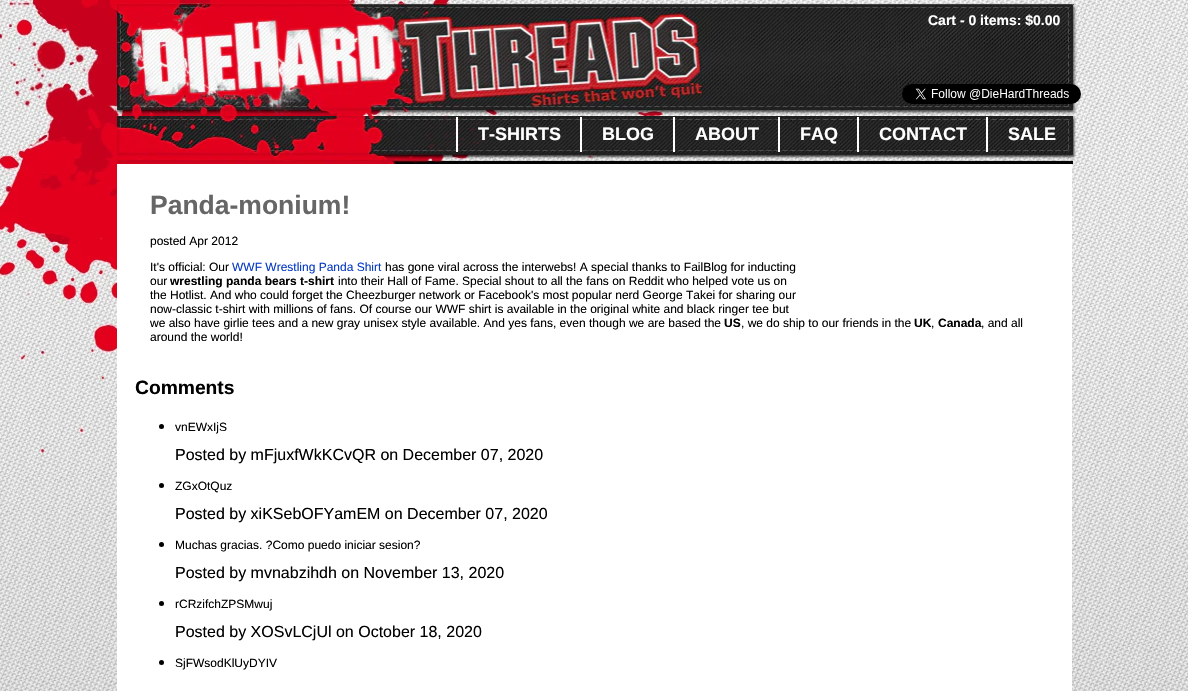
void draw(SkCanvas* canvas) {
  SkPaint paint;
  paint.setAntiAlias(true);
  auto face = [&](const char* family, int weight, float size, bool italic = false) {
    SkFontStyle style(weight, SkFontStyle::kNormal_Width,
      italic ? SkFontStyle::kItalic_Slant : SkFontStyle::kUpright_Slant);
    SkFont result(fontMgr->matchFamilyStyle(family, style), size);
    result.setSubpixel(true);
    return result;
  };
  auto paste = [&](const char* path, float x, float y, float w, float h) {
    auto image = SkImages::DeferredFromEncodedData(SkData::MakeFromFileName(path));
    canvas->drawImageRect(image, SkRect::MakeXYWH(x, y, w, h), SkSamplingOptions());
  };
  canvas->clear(0xffffffff);
  paste("img/1.png", 0, 0, 1188, 691);
  paste("img/2.png", 115, 3, 962, 112);
  paste("img/3.png", 902, 84, 179, 20);
  paste("img/4.png", 117, 116, 959, 48);
  {
    const struct { float x, y, w, h; SkColor color; } items[] = {
      {456, 117, 2, 35, 0xffffffff},
      {580, 117, 2, 35, 0xffffffff},
      {673, 117, 2, 35, 0xffffffff},
      {778, 117, 2, 35, 0xffffffff},
      {857, 117, 2, 35, 0xffffffff},
      {986, 117, 2, 35, 0xffffffff},
      {117, 164, 955, 527, 0xffffffff},
    };
    for (auto [x, y, w, h, color] : items) {
      paint.setColor(color);
      canvas->drawRect(SkRect::MakeXYWH(x, y, w, h), paint);
    }
  }
  paint.setColor(0xff000000);
  canvas->drawCircle(161.5f, 426.5f, 2.5f, paint);
  canvas->drawCircle(161.5f, 485.5f, 2.5f, paint);
  canvas->drawCircle(161.5f, 544.5f, 2.5f, paint);
  canvas->drawCircle(161.5f, 603.5f, 2.5f, paint);
  canvas->drawCircle(161.5f, 662.5f, 2.5f, paint);
  auto f0 = face("Liberation Sans", 700, 14);
  paint.setColor(0xffffffff);
  canvas->drawString("Cart - 0 items: $0.00", 928, 25, f0, paint);
  auto f1 = face("Liberation Sans", 700, 18);
  {
    const struct { const char* s; float x, y; } items[] = {
      {"T-SHIRTS", 478, 140},
      {"BLOG", 602, 140},
      {"ABOUT", 695, 140},
      {"FAQ", 800, 140},
      {"CONTACT", 879, 140},
      {"SALE", 1008, 140},
    };
    for (auto [s, x, y] : items) {
      canvas->drawString(s, x, y, f1, paint);
    }
  }
  auto f2 = face("Liberation Sans", 700, 26.5f);
  paint.setColor(0xff666666);
  canvas->drawString("Panda-monium!", 150, 214, f2, paint);
  auto f3 = face("Liberation Sans", 400, 12);
  paint.setColor(0xff000000);
  canvas->drawString("posted Apr 2012", 150, 245, f3, paint);
  canvas->drawString("It's official: Our", 150, 271, f3, paint);
  paint.setColor(0xff073bc4);
  canvas->drawString("WWF Wrestling Panda Shirt", 232, 271, f3, paint);
  paint.setColor(0xff000000);
  canvas->drawString("has gone viral across the interwebs! A special thanks to FailBlog for inducting", 385, 271, f3, paint);
  canvas->drawString("our", 150, 285, f3, paint);
  auto f4 = face("Liberation Sans", 700, 12);
  canvas->drawString("wrestling panda bears t-shirt", 170, 285, f4, paint);
  {
    const struct { const char* s; float x, y; } items[] = {
      {"into their Hall of Fame. Special shout to all the fans on Reddit who helped vote us on", 338, 285},
      {"the Hotlist. And who could forget the Cheezburger network or Facebook's most popular nerd George Takei for sharing our", 150, 299},
      {"now-classic t-shirt with millions of fans. Of course our WWF shirt is available in the original white and black ringer tee but", 150, 313},
      {"we also have girlie tees and a new gray unisex style available. And yes fans, even though we are based the", 150, 327},
    };
    for (auto [s, x, y] : items) {
      canvas->drawString(s, x, y, f3, paint);
    }
  }
  canvas->drawString("US", 724, 327, f4, paint);
  canvas->drawString(", we do ship to our friends in the", 741, 327, f3, paint);
  canvas->drawString("UK", 914, 327, f4, paint);
  canvas->drawString(",", 931, 327, f3, paint);
  canvas->drawString("Canada", 938, 327, f4, paint);
  canvas->drawString(", and all", 981, 327, f3, paint);
  canvas->drawString("around the world!", 150, 341, f3, paint);
  auto f5 = face("Liberation Sans", 700, 19.25f);
  canvas->drawString("Comments", 135, 394, f5, paint);
  canvas->drawString("vnEWxIjS", 175, 431, f3, paint);
  auto f6 = face("Liberation Sans", 400, 16);
  canvas->drawString("Posted by mFjuxfWkKCvQR on December 07, 2020", 175, 460, f6, paint);
  canvas->drawString("ZGxOtQuz", 175, 490, f3, paint);
  canvas->drawString("Posted by xiKSebOFYamEM on December 07, 2020", 175, 519, f6, paint);
  canvas->drawString("Muchas gracias. ?Como puedo iniciar sesion?", 175, 549, f3, paint);
  canvas->drawString("Posted by mvnabzihdh on November 13, 2020", 175, 578, f6, paint);
  canvas->drawString("rCRzifchZPSMwuj", 175, 608, f3, paint);
  canvas->drawString("Posted by XOSvLCjUl on October 18, 2020", 175, 637, f6, paint);
  canvas->drawString("SjFWsodKlUyDYIV", 175, 667, f3, paint);
}
